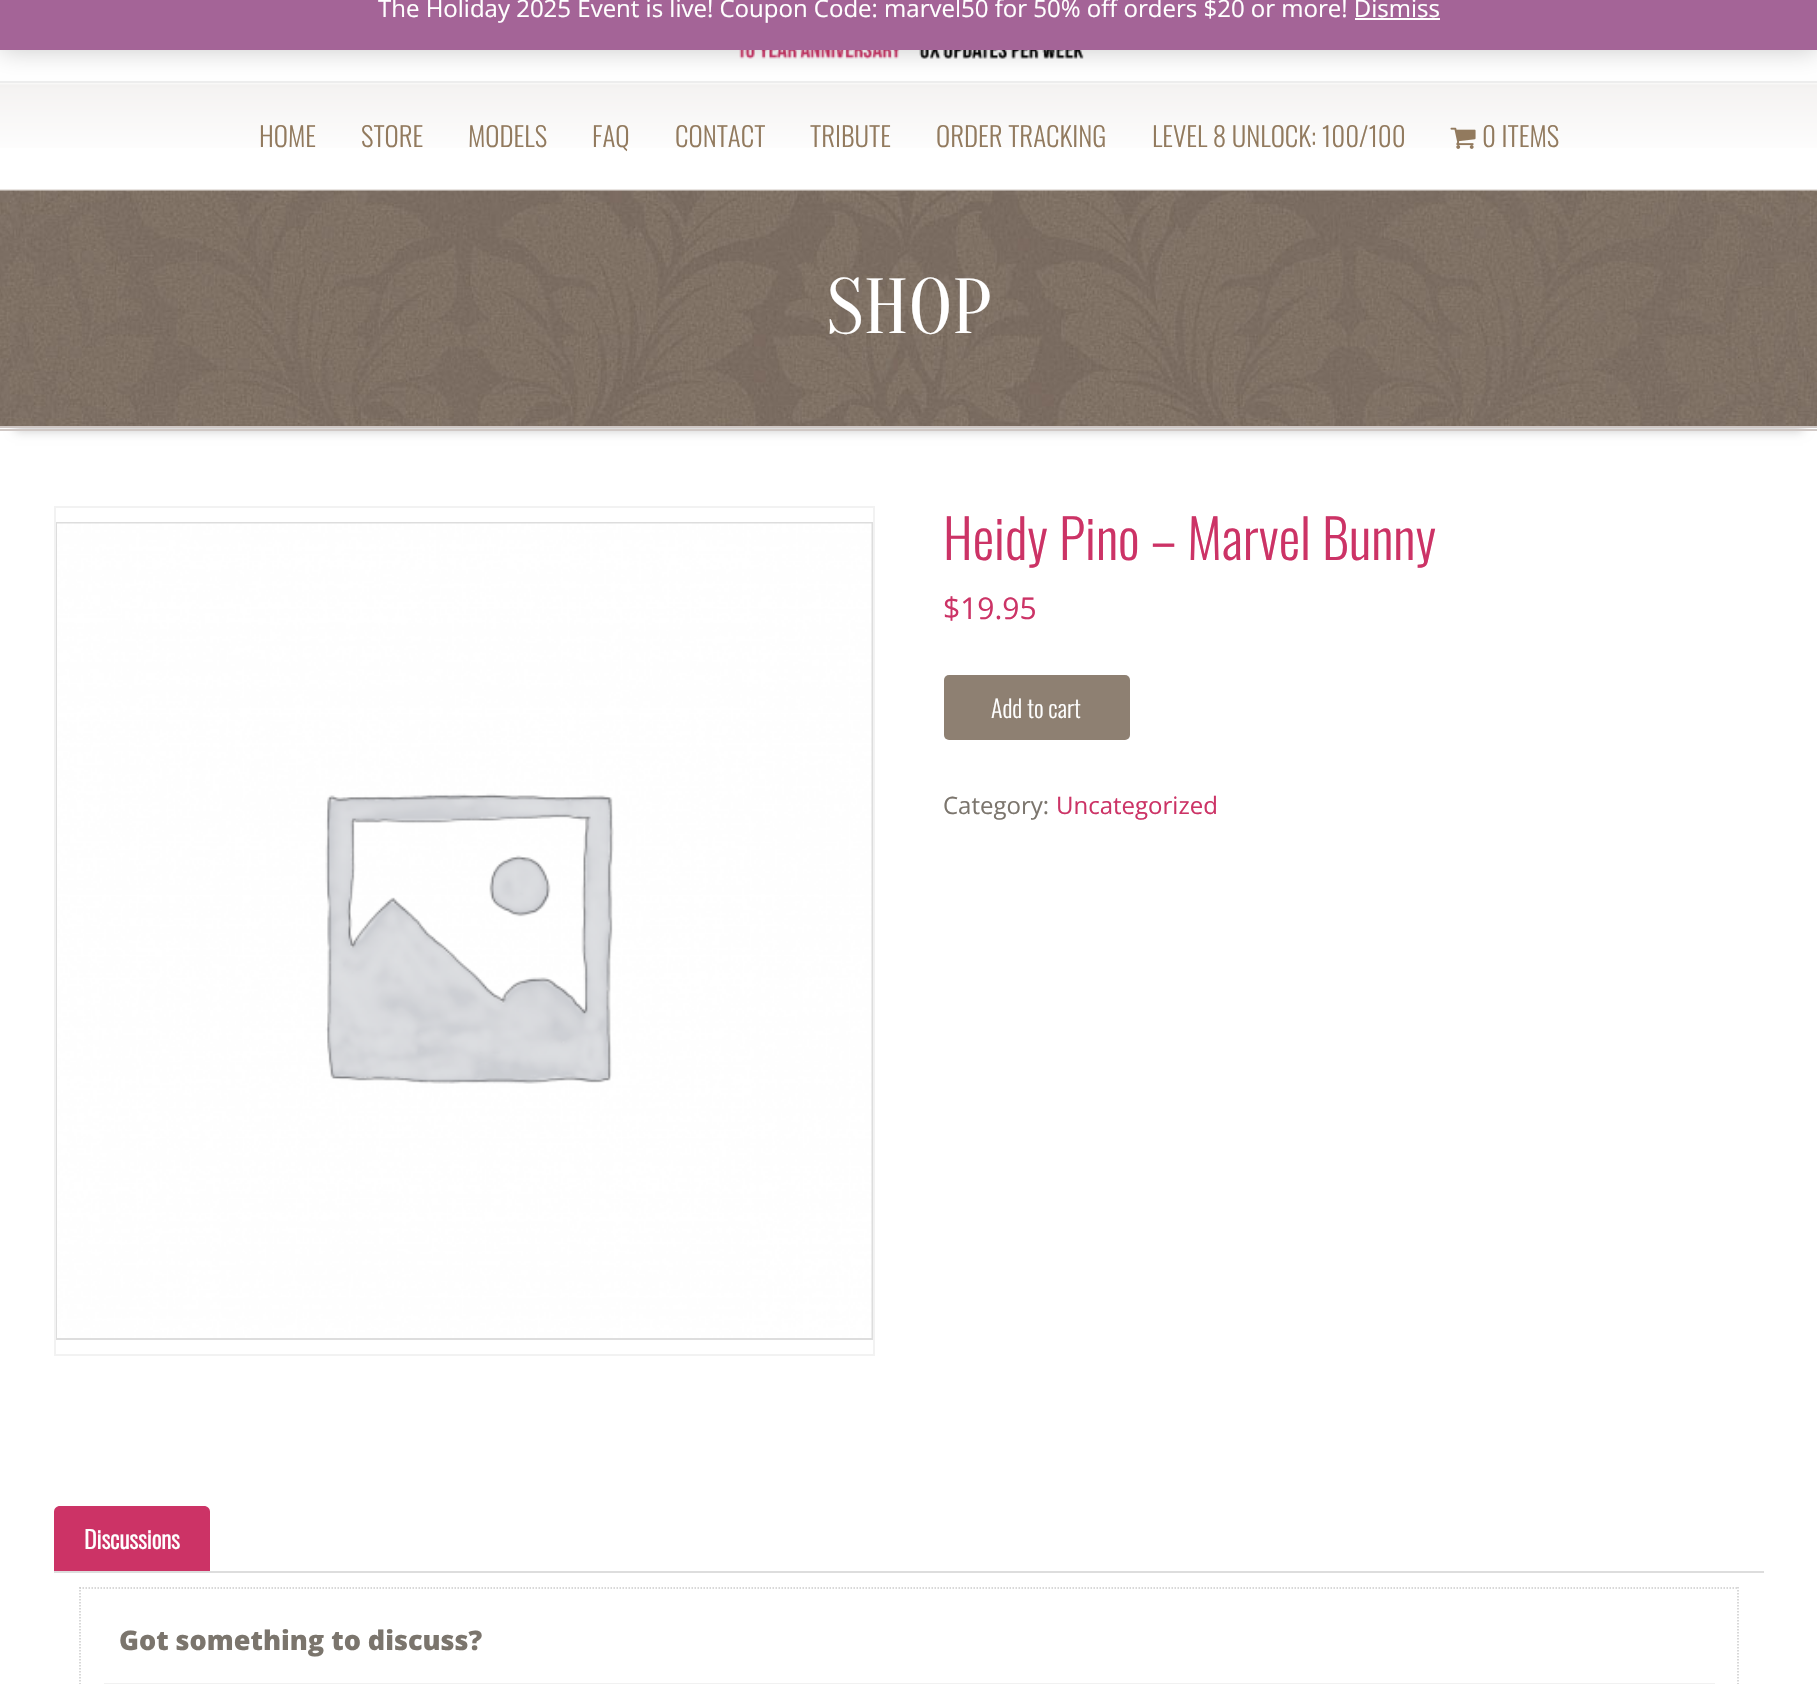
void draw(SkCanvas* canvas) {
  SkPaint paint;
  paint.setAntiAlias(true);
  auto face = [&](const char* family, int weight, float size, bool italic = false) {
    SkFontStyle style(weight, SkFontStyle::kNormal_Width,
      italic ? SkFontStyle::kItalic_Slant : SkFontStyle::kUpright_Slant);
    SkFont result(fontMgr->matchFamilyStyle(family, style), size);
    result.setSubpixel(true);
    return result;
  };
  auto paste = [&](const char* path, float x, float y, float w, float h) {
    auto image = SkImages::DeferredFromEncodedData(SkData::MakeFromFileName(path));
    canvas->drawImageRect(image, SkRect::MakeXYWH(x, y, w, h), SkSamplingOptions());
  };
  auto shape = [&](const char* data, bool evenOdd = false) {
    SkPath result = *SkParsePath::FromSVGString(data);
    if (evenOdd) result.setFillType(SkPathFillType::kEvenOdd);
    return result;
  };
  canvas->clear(0xffffffff);
  paste("img/1.png", 739, 50, 345, 9);
  {
    const SkColor colors[] = {0xffffffff, 0xfff4f2f1, 0xffffffff, 0xffffffff};
    const float stops[] = {0, 0.03f, 0.74f, 1};
    const SkPoint ends[] = {{909, 82}, {909, 189}};
    paint.setShader(SkGradientShader::MakeLinear(ends, colors, stops, 4, SkTileMode::kClamp));
    paint.setAlpha(255);
  }
  canvas->drawRect(SkRect::MakeXYWH(0, 83, 1817, 65), paint);
  paint.setShader(nullptr);
  paint.setColor(0xffeeeeee);
  canvas->drawRect(SkRect::MakeXYWH(0, 81, 1817, 2), paint);
  paint.setColor(0x33000000);
  paint.setMaskFilter(SkMaskFilter::MakeBlur(kNormal_SkBlurStyle, 12));
  canvas->drawRect(SkRect::MakeXYWH(0, -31, 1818, 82), paint);
  paint.setMaskFilter(nullptr);
  {
    const struct { float x, y, w, h; SkColor color; } items[] = {
      {0, 0, 1817, 50, 0xffa46497},
      {1355, 18, 85, 2, 0xffffffff},
      {0, 189, 1817, 2, 0xffe8e4e1},
    };
    for (auto [x, y, w, h, color] : items) {
      paint.setColor(color);
      canvas->drawRect(SkRect::MakeXYWH(x, y, w, h), paint);
    }
  }
  paste("img/2.png", 1450, 127, 26, 22);
  paint.setColor(0x33000000);
  paint.setMaskFilter(SkMaskFilter::MakeBlur(kNormal_SkBlurStyle, 5));
  canvas->drawRect(SkRect::MakeXYWH(15, 221, 1788, 210), paint);
  paint.setMaskFilter(nullptr);
  paint.setColor(0xffd0c8c5);
  canvas->drawRect(SkRect::MakeXYWH(0, 426, 1817, 2), paint);
  canvas->drawRect(SkRect::MakeXYWH(0, 429, 1817, 2), paint);
  paste("img/3.png", 0, 190, 1817, 236);
  paint.setStroke(true);
  paint.setStrokeWidth(2);
  paint.setColor(0xfff2f2f2);
  canvas->drawRect(SkRect::MakeXYWH(55, 507, 819, 848), paint);
  paint.setColor(0xffdddddd);
  canvas->drawRect(SkRect::MakeXYWH(57, 523, 815, 816), paint);
  paste("img/4.png", 57, 523, 815, 815);
  paint.setStroke(false);
  paint.setColor(0xff8e8072);
  canvas->drawRoundRect(SkRect::MakeXYWH(944, 675, 186, 65), 5, 5, paint);
  paint.setColor(0xffdddddd);
  canvas->drawRect(SkRect::MakeXYWH(54, 1571, 1710, 2), paint);
  paint.setColor(0xffcc3366);
  canvas->drawPath(shape("M60 1506H204C207.5 1506 210 1508.5 210 1512V1571H54V1512C54 1508.5 56.5 1506 60 1506Z"), paint);
  paint.setStroke(true);
  paint.setStrokeWidth(1.5f);
  paint.setColor(0xffcccccc);
  paint.setPathEffect(SkDashPathEffect::Make({{1.5f, 1.5f}}, 0));
  canvas->drawPath(shape("M79.5 1588H1738.5"), paint);
  paint.setPathEffect(nullptr);
  paint.setPathEffect(SkDashPathEffect::Make({{1.5f, 1.5f}}, 0));
  canvas->drawPath(shape("M1738 1587V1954.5"), paint);
  paint.setPathEffect(nullptr);
  paint.setPathEffect(SkDashPathEffect::Make({{1.5f, 1.5f}}, 0));
  canvas->drawPath(shape("M80 1587V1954.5"), paint);
  paint.setPathEffect(nullptr);
  paint.setStrokeWidth(2);
  paint.setColor(0xfff1f1f1);
  canvas->drawRect(SkRect::MakeXYWH(105, 1684, 1609, 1), paint);
  auto f0 = face("Open Sans", 400, 24);
  paint.setStroke(false);
  paint.setColor(0xffffffff);
  canvas->drawString("The Holiday 2025 Event is live! Coupon Code: marvel50 for 50% off orders $20 or more! Dismiss", 378, 17, f0, paint);
  auto f1 = face("Oswald", 300, 27);
  paint.setColor(0xff927a5e);
  {
    const struct { const char* s; float x, y; } items[] = {
      {"HOME", 259, 147},
      {"STORE", 361, 147},
      {"MODELS", 468, 147},
      {"FAQ", 592, 147},
      {"CONTACT", 675, 147},
      {"TRIBUTE", 810, 147},
      {"ORDER TRACKING", 936, 147},
      {"LEVEL 8 UNLOCK: 100/100", 1152, 147},
      {"0 ITEMS", 1482, 147},
    };
    for (auto [s, x, y] : items) {
      canvas->drawString(s, x, y, f1, paint);
    }
  }
  auto f2 = face("Oranienbaum", 400, 78);
  paint.setColor(0xffffffff);
  canvas->drawString("SHOP", 827, 333, f2, paint);
  auto f3 = face("Oswald", 300, 54);
  paint.setColor(0xffcc3366);
  canvas->drawString("Heidy Pino – Marvel Bunny", 943, 560, f3, paint);
  auto f4 = face("Open Sans", 400, 30);
  canvas->drawString("$19.95", 943, 619, f4, paint);
  auto f5 = face("Oswald", 300, 24);
  paint.setColor(0xffffffff);
  canvas->drawString("Add to cart", 991, 718, f5, paint);
  paint.setColor(0xff7b756d);
  canvas->drawString("Category:", 943, 814, f0, paint);
  paint.setColor(0xffcc3366);
  canvas->drawString("Uncategorized", 1056, 814, f0, paint);
  auto f6 = face("Oswald", 700, 24);
  paint.setColor(0xffffffff);
  canvas->drawString("Discussions", 84, 1549, f6, paint);
  auto f7 = face("Open Sans", 800, 27);
  paint.setColor(0xff7b756d);
  canvas->drawString("Got something to discuss?", 119, 1650, f7, paint);
}
